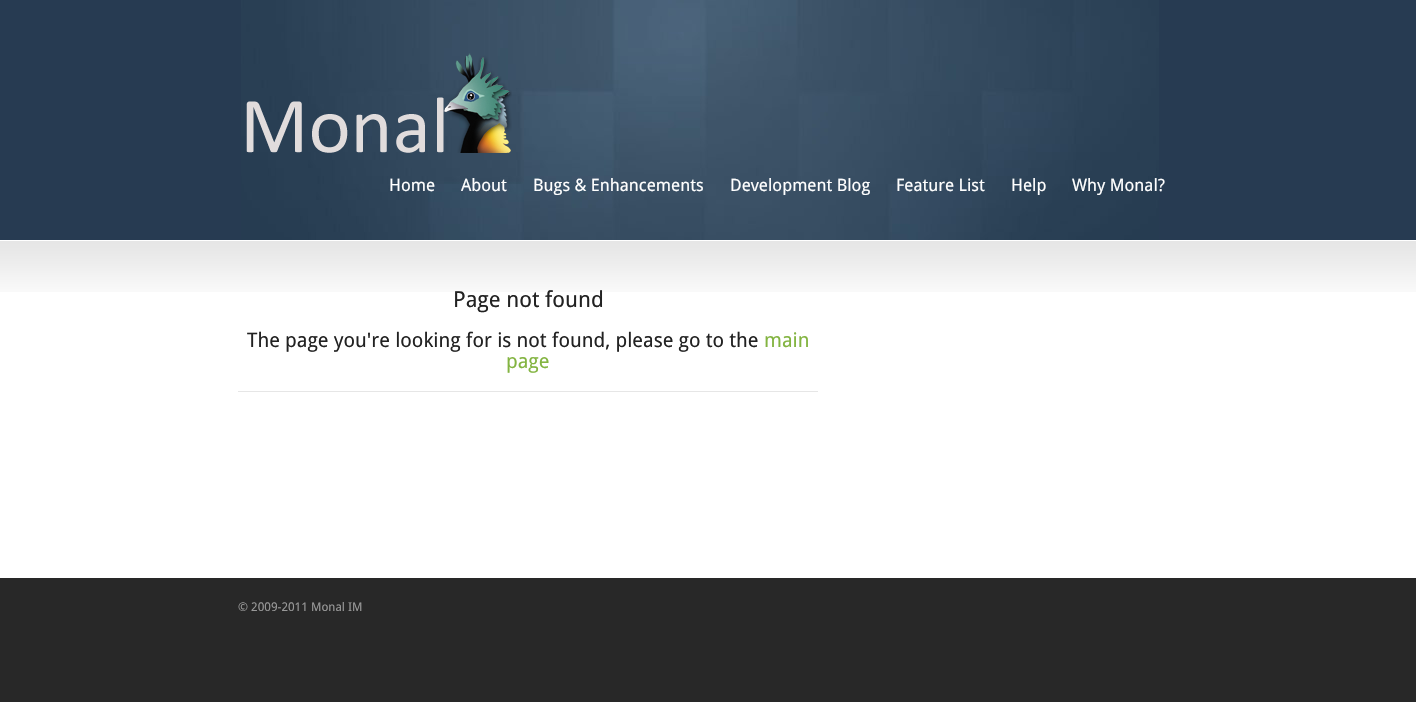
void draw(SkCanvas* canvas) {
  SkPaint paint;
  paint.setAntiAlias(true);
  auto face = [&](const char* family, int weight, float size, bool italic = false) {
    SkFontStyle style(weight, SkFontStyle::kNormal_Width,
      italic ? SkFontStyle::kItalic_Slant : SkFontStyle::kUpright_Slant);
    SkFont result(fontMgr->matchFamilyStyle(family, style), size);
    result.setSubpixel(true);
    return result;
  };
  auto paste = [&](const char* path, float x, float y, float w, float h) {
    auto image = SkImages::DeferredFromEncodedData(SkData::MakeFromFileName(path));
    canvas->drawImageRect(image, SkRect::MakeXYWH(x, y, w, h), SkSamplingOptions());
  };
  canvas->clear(0xff282828);
  paint.setColor(0xffffffff);
  canvas->drawRect(SkRect::MakeXYWH(0, 240, 1416, 338), paint);
  paint.setColor(0xff273b52);
  canvas->drawRect(SkRect::MakeXYWH(0, 0, 1416, 240), paint);
  paste("img/1.png", 241, 0, 918, 240);
  paste("img/2.png", 246, 53, 266, 100);
  paste("img/3.png", 0, 241, 1416, 51);
  paint.setColor(0xffe6e6e6);
  canvas->drawRect(SkRect::MakeXYWH(238, 391, 580, 1), paint);
  auto f0 = face("Droid Sans", 400, 17);
  paint.setColor(0xffffffff);
  {
    const struct { const char* s; float x, y; } items[] = {
      {"Home", 389, 191},
      {"About", 461, 191},
      {"Bugs & Enhancements", 533, 191},
      {"Development Blog", 730, 191},
      {"Feature List", 896, 191},
      {"Help", 1011, 191},
      {"Why Monal?", 1072, 191},
    };
    for (auto [s, x, y] : items) {
      canvas->drawString(s, x, y, f0, paint);
    }
  }
  auto f1 = face("Droid Sans", 400, 22);
  paint.setColor(0xff222222);
  canvas->drawString("Page not found", 453, 307, f1, paint);
  auto f2 = face("Droid Sans", 400, 20);
  canvas->drawString("The page you're looking for is not found, please go to the", 247, 347, f2, paint);
  paint.setColor(0xff83b441);
  canvas->drawString("main", 764, 347, f2, paint);
  canvas->drawString("page", 506, 368, f2, paint);
  auto f3 = face("Droid Sans", 400, 12);
  paint.setColor(0xff999999);
  canvas->drawString("© 2009-2011 Monal IM", 238, 611, f3, paint);
}
